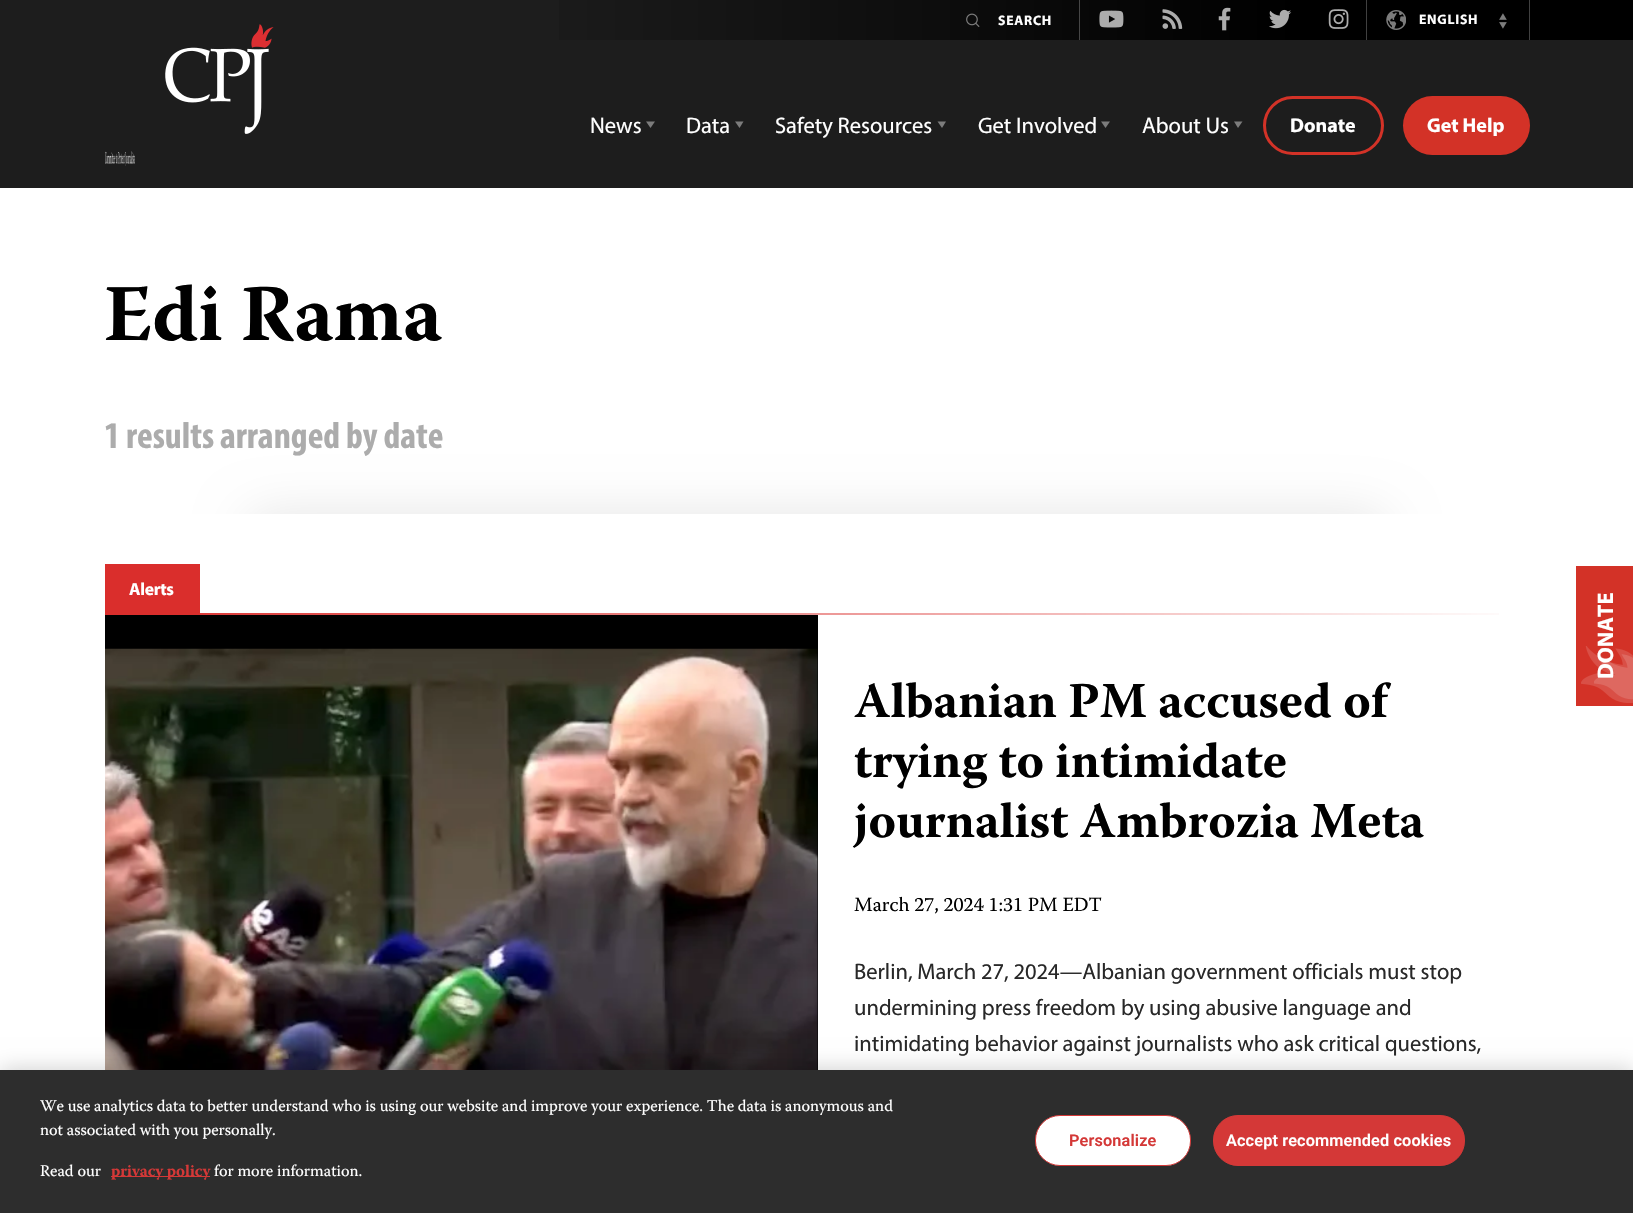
void draw(SkCanvas* canvas) {
  SkPaint paint;
  paint.setAntiAlias(true);
  auto face = [&](const char* family, int weight, float size, bool italic = false) {
    SkFontStyle style(weight, SkFontStyle::kNormal_Width,
      italic ? SkFontStyle::kItalic_Slant : SkFontStyle::kUpright_Slant);
    SkFont result(fontMgr->matchFamilyStyle(family, style), size);
    result.setSubpixel(true);
    return result;
  };
  auto writeSpaced = [&](const char* s, float x, float y, const SkFont& font, const SkPaint& ink, float letter, float word) {
    std::vector<SkGlyphID> glyphs(font.countText(s, strlen(s), SkTextEncoding::kUTF8));
    std::vector<float> xs(glyphs.size());
    font.textToGlyphs(s, strlen(s), SkTextEncoding::kUTF8, glyphs);
    font.getXPos(glyphs, xs, x);
    float extra = 0;
    for (size_t i = 0; i < glyphs.size(); i++) {
      xs[i] += extra;
      extra += letter + word * (glyphs[i] == font.unicharToGlyph(' '));
    }
    canvas->drawTextBlob(SkTextBlob::MakeFromPosHGlyphs(glyphs, xs, y, font), 0, 0, ink);
  };
  auto paste = [&](const char* path, float x, float y, float w, float h) {
    auto image = SkImages::DeferredFromEncodedData(SkData::MakeFromFileName(path));
    canvas->drawImageRect(image, SkRect::MakeXYWH(x, y, w, h), SkSamplingOptions());
  };
  auto shape = [&](const char* data, bool evenOdd = false) {
    SkPath result = *SkParsePath::FromSVGString(data);
    if (evenOdd) result.setFillType(SkPathFillType::kEvenOdd);
    return result;
  };
  canvas->clear(0xffffffff);
  paint.setColor(0xff1d1d1d);
  canvas->drawRect(SkRect::MakeXYWH(0, 0, 1633, 188), paint);
  {
    const SkColor colors[] = {0xff000000, 0xff1d1d1d};
    const float stops[] = {0.21f, 0.89f};
    const SkPoint ends[] = {{1549, 20}, {358, 20}};
    paint.setShader(SkGradientShader::MakeLinear(ends, colors, stops, 2, SkTileMode::kClamp));
    paint.setAlpha(255);
  }
  canvas->drawRect(SkRect::MakeXYWH(559, 0, 990, 40), paint);
  paint.setShader(nullptr);
  paint.setColor(0xff464646);
  canvas->drawRect(SkRect::MakeXYWH(1079, 0, 1, 40), paint);
  paste("img/1.png", 966, 13, 14, 14);
  paint.setColor(0xff404040);
  canvas->drawRect(SkRect::MakeXYWH(1366, 0, 1, 40), paint);
  paste("img/2.png", 1099, 10, 25, 18);
  paste("img/3.png", 1162, 9, 21, 20);
  paste("img/4.png", 1218, 7, 13, 24);
  paste("img/5.png", 1269, 9, 23, 20);
  paste("img/6.png", 1328, 9, 21, 20);
  canvas->drawRect(SkRect::MakeXYWH(1529, 0, 1, 40), paint);
  paste("img/7.png", 1386, 10, 20, 20);
  paste("img/8.png", 1499, 13, 8, 16);
  paint.setColor(0xff000000);
  canvas->drawRect(SkRect::MakeXYWH(1549, 0, 84, 40), paint);
  paste("img/9.png", 165, 24, 109, 110);
  paste("img/10.png", 105, 151, 30, 15);
  paint.setColor(0xff7c7c7c);
  canvas->drawPath(shape("M650.5 128L646 121.5H655Z"), paint);
  canvas->drawPath(shape("M739.5 128L735 121.5H743.5Z"), paint);
  canvas->drawPath(shape("M942 128L937.5 121.5H946Z"), paint);
  canvas->drawPath(shape("M1105.5 128L1101 121.5H1110Z"), paint);
  canvas->drawPath(shape("M1238 128L1234 121.5H1242.5Z"), paint);
  paint.setStroke(true);
  paint.setStrokeWidth(3);
  paint.setColor(0xffd33227);
  canvas->drawRoundRect(SkRect::MakeXYWH(1264.5f, 97.5f, 118, 56), 28, 28, paint);
  paint.setStroke(false);
  canvas->drawRoundRect(SkRect::MakeXYWH(1403, 96, 127, 59), 29.5f, 29.5f, paint);
  paint.setColor(0xff000000);
  canvas->drawRect(SkRect::MakeXYWH(105, 615, 713, 455), paint);
  canvas->save();
  canvas->clipRect(SkRect::MakeXYWH(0, 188, 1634, 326));
  paint.setColor(0x1a000000);
  paint.setMaskFilter(SkMaskFilter::MakeBlur(kNormal_SkBlurStyle, 25));
  canvas->drawRoundRect(SkRect::MakeXYWH(245, 514, 1144, 50), 25, 25, paint);
  paint.setMaskFilter(nullptr);
  canvas->restore();
  paint.setColor(0xffda2e2c);
  canvas->drawRect(SkRect::MakeXYWH(105, 564, 95, 51), paint);
  {
    const SkColor colors[] = {0xffda2e2c, 0x00da2e2c};
    const float stops[] = {0, 1};
    const SkPoint ends[] = {{105, 614}, {1530, 614}};
    paint.setShader(SkGradientShader::MakeLinear(ends, colors, stops, 2, SkTileMode::kClamp));
    paint.setAlpha(255);
  }
  canvas->drawRect(SkRect::MakeXYWH(200, 613, 1299, 2), paint);
  paste("img/11.png", 105, 648, 713, 422);
  paint.setShader(nullptr);
  paint.setColor(0xffd33227);
  canvas->drawRect(SkRect::MakeXYWH(1576, 566, 57, 140), paint);
  paste("img/12.png", 1581, 646, 52, 57);
  paste("img/13.png", 1594, 653, 39, 47);
  paint.setColor(0x33000000);
  paint.setMaskFilter(SkMaskFilter::MakeBlur(kNormal_SkBlurStyle, 11));
  canvas->drawRect(SkRect::MakeXYWH(0, 1070, 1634, 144), paint);
  paint.setMaskFilter(nullptr);
  paint.setColor(0xff2d2d2d);
  canvas->drawRect(SkRect::MakeXYWH(0, 1070, 1633, 143), paint);
  paint.setColor(0xffd43837);
  canvas->drawRect(SkRect::MakeXYWH(111, 1176, 99, 1), paint);
  paint.setColor(0xffffffff);
  canvas->drawRoundRect(SkRect::MakeXYWH(1035.5f, 1115.5f, 155, 50), 24.5f, 24.5f, paint);
  paint.setStroke(true);
  paint.setStrokeWidth(1);
  paint.setColor(0xffd43837);
  canvas->drawRoundRect(SkRect::MakeXYWH(1035.5f, 1115.5f, 155, 50), 24.5f, 24.5f, paint);
  paint.setStroke(false);
  canvas->drawRoundRect(SkRect::MakeXYWH(1213.5f, 1115.5f, 251, 50), 24.5f, 24.5f, paint);
  paint.setStroke(true);
  canvas->drawRoundRect(SkRect::MakeXYWH(1213.5f, 1115.5f, 251, 50), 24.5f, 24.5f, paint);
  auto f0 = face("Myriad", 700, 13.75f);
  paint.setStroke(false);
  paint.setColor(0xffffffff);
  writeSpaced("SEARCH", 998, 25, f0, paint, 0.75f, 0);
  writeSpaced("ENGLISH", 1419, 24, f0, paint, 0.75f, 0);
  auto f1 = face("Myriad", 400, 22.5f);
  {
    const struct { const char* s; float x, y; } items[] = {
      {"News", 590, 133},
      {"Data", 686, 133},
      {"Safety Resources", 775, 133},
      {"Get Involved", 978, 133},
      {"About Us", 1142, 133},
    };
    for (auto [s, x, y] : items) {
      canvas->drawString(s, x, y, f1, paint);
    }
  }
  auto f2 = face("Myriad", 700, 20);
  canvas->drawString("Donate", 1290, 132, f2, paint);
  canvas->drawString("Get Help", 1427, 132, f2, paint);
  auto f3 = face("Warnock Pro", 700, 80);
  paint.setColor(0xff000000);
  canvas->drawString("Edi Rama", 104, 340, f3, paint);
  auto f4 = face("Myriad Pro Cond", 700, 37.5f);
  paint.setColor(0xffacacac);
  canvas->drawString("1 results arranged by date", 104, 448, f4, paint);
  auto f5 = face("Myriad", 700, 17.5f);
  paint.setColor(0xffffffff);
  writeSpaced("Alerts", 129, 595, f5, paint, -0.25f, 0);
  auto f6 = face("Warnock Pro", 700, 50);
  paint.setColor(0xff000000);
  {
    const struct { const char* s; float x, y; } items[] = {
      {"Albanian PM accused of", 854, 717},
      {"trying to intimidate", 854, 777},
      {"journalist Ambrozia Meta", 854, 837},
    };
    for (auto [s, x, y] : items) {
      canvas->drawString(s, x, y, f6, paint);
    }
  }
  auto f7 = face("Warnock Pro", 400, 20);
  canvas->drawString("March 27, 2024 1:31 PM EDT", 854, 911, f7, paint);
  paint.setColor(0xff282828);
  {
    const struct { const char* s; float x, y; } items[] = {
      {"Berlin, March 27, 2024—Albanian government officials must stop", 854, 979},
      {"undermining press freedom by using abusive language and", 854, 1015},
      {"intimidating behavior against journalists who ask critical questions,", 854, 1051},
    };
    for (auto [s, x, y] : items) {
      canvas->drawString(s, x, y, f1, paint);
    }
  }
  auto f8 = face("Myriad", 700, 22.5f);
  paint.setColor(0xffffffff);
  canvas->save();
  canvas->rotate(-90, 1613, 679);
  canvas->drawString("DONATE", 1613, 679, f8, paint);
  canvas->restore();
  auto f9 = face("Warnock Pro", 400, 16.25f);
  {
    const struct { const char* s; float x, y; } items[] = {
      {"We use analytics data to better understand who is using our website and improve your experience. The data is anonymous and", 40, 1111},
      {"not associated with you personally.", 40, 1135},
      {"Read our", 40, 1176},
    };
    for (auto [s, x, y] : items) {
      canvas->drawString(s, x, y, f9, paint);
    }
  }
  auto f10 = face("Warnock Pro", 700, 16.25f);
  paint.setColor(0xffd43837);
  canvas->drawString("privacy policy", 111, 1176, f10, paint);
  paint.setColor(0xffffffff);
  canvas->drawString("for more information.", 214, 1176, f9, paint);
  auto f11 = face("Roboto", 600, 16.25f);
  paint.setColor(0xffd43837);
  writeSpaced("Personalize", 1069, 1146, f11, paint, 0.15f, 0);
  paint.setColor(0xffffffff);
  writeSpaced("Accept recommended cookies", 1226, 1146, f11, paint, 0.15f, 0);
}
